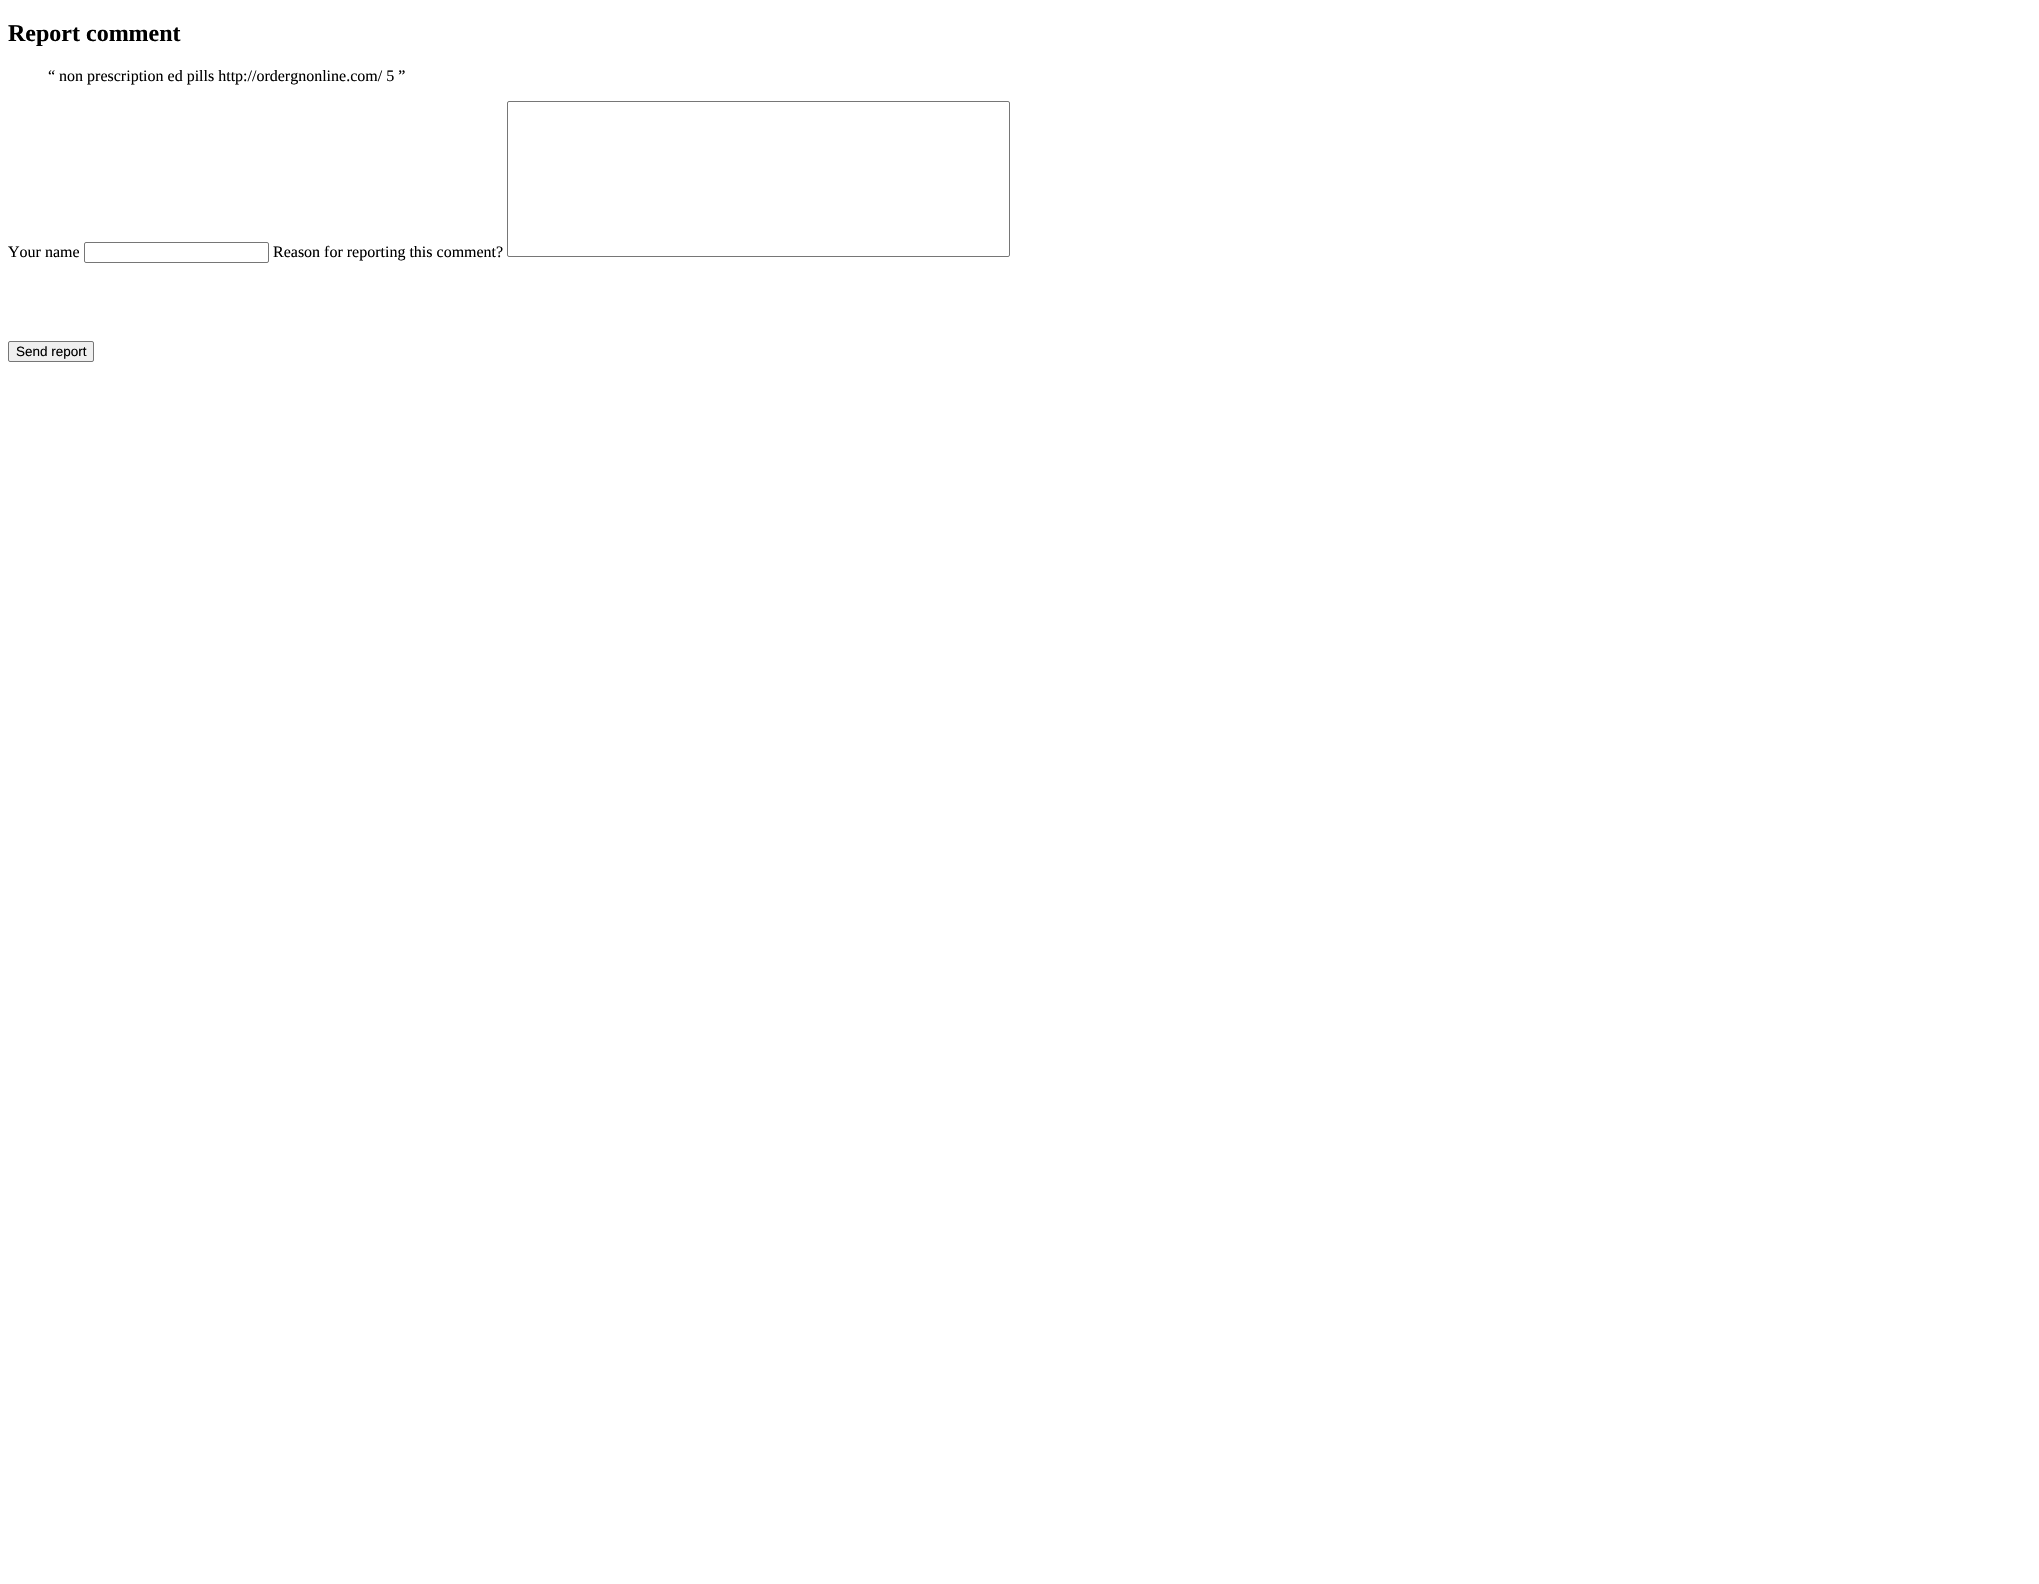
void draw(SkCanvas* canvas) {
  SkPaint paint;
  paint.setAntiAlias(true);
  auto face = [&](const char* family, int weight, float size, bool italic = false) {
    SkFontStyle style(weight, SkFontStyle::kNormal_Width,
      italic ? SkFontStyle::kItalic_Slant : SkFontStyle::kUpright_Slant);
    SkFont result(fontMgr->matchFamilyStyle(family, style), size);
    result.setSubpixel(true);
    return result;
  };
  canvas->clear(0xffffffff);
  paint.setStroke(true);
  paint.setStrokeWidth(1);
  paint.setColor(0xff767676);
  canvas->drawRoundRect(SkRect::MakeXYWH(84.5f, 242.5f, 184, 20), 1.5f, 1.5f, paint);
  canvas->drawRoundRect(SkRect::MakeXYWH(507.5f, 101.5f, 502, 155), 1.5f, 1.5f, paint);
  paint.setStroke(false);
  paint.setColor(0xffefefef);
  canvas->drawRoundRect(SkRect::MakeXYWH(8.5f, 341.5f, 85, 20), 1.5f, 1.5f, paint);
  paint.setStroke(true);
  paint.setColor(0xff767676);
  canvas->drawRoundRect(SkRect::MakeXYWH(8.5f, 341.5f, 85, 20), 1.5f, 1.5f, paint);
  auto f0 = face("Liberation Serif", 700, 24);
  paint.setStroke(false);
  paint.setColor(0xff000000);
  canvas->drawString("Report comment", 8, 41, f0, paint);
  auto f1 = face("Liberation Serif", 400, 16);
  {
    const struct { const char* s; float x, y; } items[] = {
      {"“ non prescription ed pills http://ordergnonline.com/ 5 ”", 48, 81},
      {"Your name", 8, 257},
      {"Reason for reporting this comment?", 273, 257},
    };
    for (auto [s, x, y] : items) {
      canvas->drawString(s, x, y, f1, paint);
    }
  }
  auto f2 = face("Liberation Sans", 400, 13.5f);
  canvas->drawString("Send report", 16, 356, f2, paint);
}
